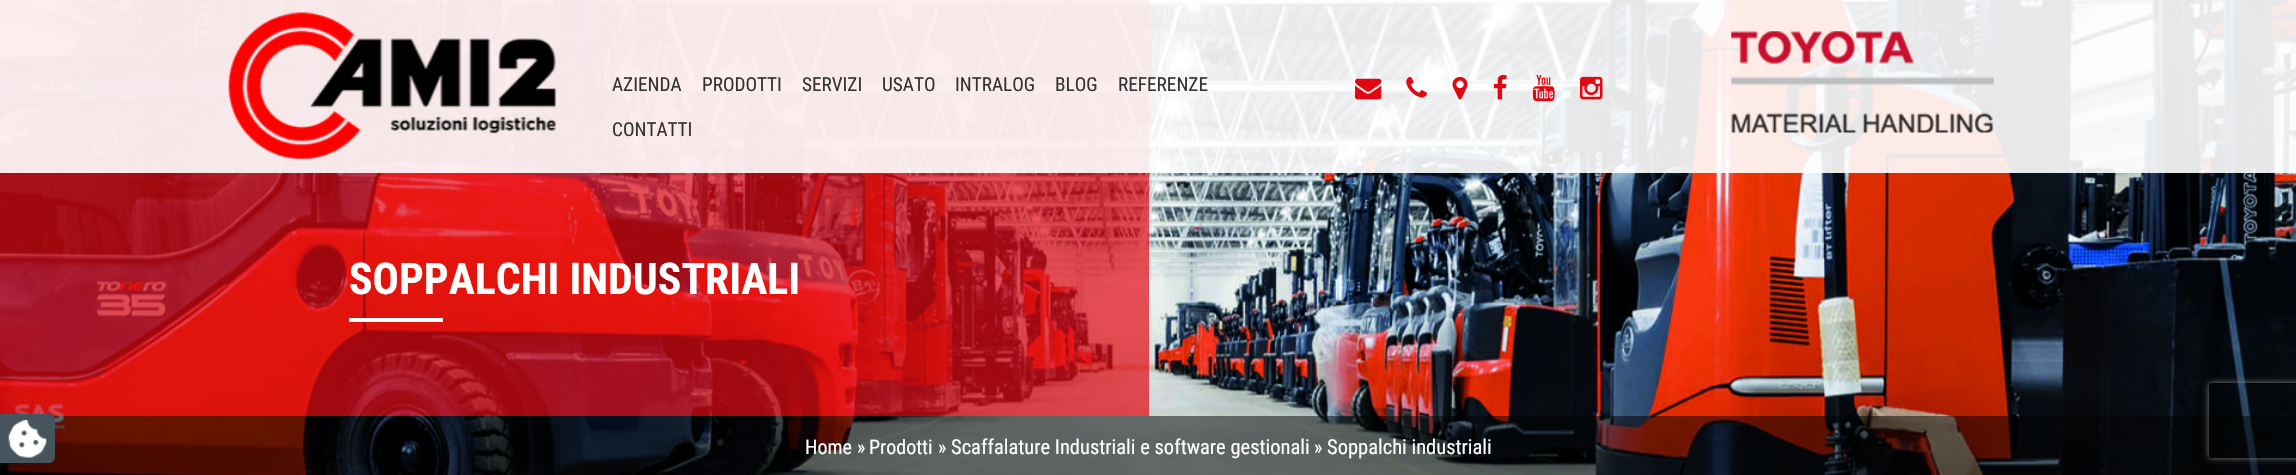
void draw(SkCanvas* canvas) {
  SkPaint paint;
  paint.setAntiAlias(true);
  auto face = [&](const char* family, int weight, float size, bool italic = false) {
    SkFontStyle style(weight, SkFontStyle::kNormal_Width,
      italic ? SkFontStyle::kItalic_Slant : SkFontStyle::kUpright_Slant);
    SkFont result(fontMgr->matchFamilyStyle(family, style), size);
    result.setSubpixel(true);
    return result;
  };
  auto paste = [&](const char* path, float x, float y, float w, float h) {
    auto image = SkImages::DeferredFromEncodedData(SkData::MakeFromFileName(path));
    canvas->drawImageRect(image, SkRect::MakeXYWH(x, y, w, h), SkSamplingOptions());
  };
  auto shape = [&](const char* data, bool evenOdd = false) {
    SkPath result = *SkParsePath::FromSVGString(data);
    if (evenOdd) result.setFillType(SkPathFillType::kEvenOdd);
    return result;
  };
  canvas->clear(0xffffffff);
  paste("img/9.png", 0, 0, 2296, 475);
  paint.setColor(0xb3e20813);
  canvas->drawRect(SkRect::MakeXYWH(0, 0, 1149, 416), paint);
  paint.setColor(0xe6ffffff);
  canvas->drawRect(SkRect::MakeXYWH(0, 0, 2296, 173), paint);
  paste("img/1.png", 228, 12, 328, 147);
  paste("img/2.png", 1355, 78, 27, 22);
  paste("img/3.png", 1406, 76, 21, 22);
  paste("img/4.png", 1452, 76, 16, 24);
  paste("img/5.png", 1493, 75, 14, 25);
  paste("img/6.png", 1532, 75, 23, 27);
  paste("img/7.png", 1580, 76, 23, 24);
  paste("img/8.png", 1731, 31, 263, 102);
  paint.setColor(0xffffffff);
  canvas->drawRect(SkRect::MakeXYWH(349, 318, 94, 4), paint);
  paint.setColor(0x80000000);
  canvas->drawRect(SkRect::MakeXYWH(0, 416, 2296, 59), paint);
  paint.setColor(0xff47545d);
  canvas->drawPath(shape("M0 414H49C52.5 414 55 416.5 55 420V457C55 460.5 52.5 463 49 463H0Z"), paint);
  paste("img/10.png", 8, 420, 39, 38);
  canvas->save();
  canvas->clipPath(shape("M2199 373H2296V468H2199ZM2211.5 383H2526.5C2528 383 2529 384 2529 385.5V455.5C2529 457 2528 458 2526.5 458H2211.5C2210 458 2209 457 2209 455.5V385.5C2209 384 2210 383 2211.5 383Z", true), true);
  paint.setColor(0xff808080);
  paint.setMaskFilter(SkMaskFilter::MakeBlur(kNormal_SkBlurStyle, 3));
  canvas->drawRoundRect(SkRect::MakeXYWH(2209, 383, 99, 75), 2.5f, 2.5f, paint);
  paint.setMaskFilter(nullptr);
  canvas->restore();
  auto f0 = face("Roboto Condensed", 400, 19.25f);
  paint.setColor(0xff333333);
  {
    const struct { const char* s; float x, y; } items[] = {
      {"AZIENDA", 612, 91},
      {"PRODOTTI", 702, 91},
      {"SERVIZI", 802, 91},
      {"USATO", 882, 91},
      {"INTRALOG", 955, 91},
      {"BLOG", 1055, 91},
      {"REFERENZE", 1118, 91},
      {"CONTATTI", 612, 136},
    };
    for (auto [s, x, y] : items) {
      canvas->drawString(s, x, y, f0, paint);
    }
  }
  auto f1 = face("Roboto Condensed", 700, 43.75f);
  paint.setColor(0xffffffff);
  canvas->drawString("SOPPALCHI INDUSTRIALI", 349, 294, f1, paint);
  auto f2 = face("Roboto Condensed", 400, 20);
  {
    const struct { const char* s; float x, y; } items[] = {
      {"Home", 805, 454},
      {"»", 857, 454},
      {"Prodotti", 869, 454},
      {"»", 938, 454},
    };
    for (auto [s, x, y] : items) {
      canvas->drawString(s, x, y, f2, paint);
    }
  }
  auto f3 = face("Roboto Condensed", 400, 20.5f);
  canvas->drawString("Scaffalature Industriali e software gestionali", 951, 454, f3, paint);
  canvas->drawString("»", 1314, 454, f2, paint);
  canvas->drawString("Soppalchi industriali", 1327, 454, f3, paint);
}
